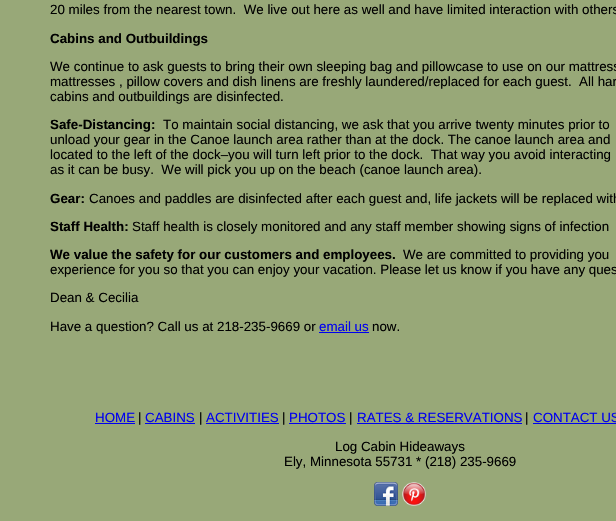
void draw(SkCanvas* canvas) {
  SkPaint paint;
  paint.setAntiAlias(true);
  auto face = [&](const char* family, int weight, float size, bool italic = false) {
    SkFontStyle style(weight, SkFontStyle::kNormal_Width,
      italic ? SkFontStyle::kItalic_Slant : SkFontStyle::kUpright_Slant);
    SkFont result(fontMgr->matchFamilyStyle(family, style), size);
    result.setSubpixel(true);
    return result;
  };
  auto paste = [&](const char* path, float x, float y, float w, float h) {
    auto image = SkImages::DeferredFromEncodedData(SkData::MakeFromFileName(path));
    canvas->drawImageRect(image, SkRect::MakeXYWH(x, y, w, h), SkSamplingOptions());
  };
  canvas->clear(0xff98a878);
  {
    const struct { float x, y, w, h; SkColor color; } items[] = {
      {319, 332, 50, 1, 0xff0000ee},
      {95, 423, 40, 1, 0xff0000ee},
      {145, 423, 50, 1, 0xff0000ee},
      {206, 423, 73, 1, 0xff0000ee},
      {289, 423, 57, 1, 0xff0000ee},
      {357, 423, 165, 1, 0xff0000ee},
      {533, 423, 83, 1, 0xff0000ee},
    };
    for (auto [x, y, w, h, color] : items) {
      paint.setColor(color);
      canvas->drawRect(SkRect::MakeXYWH(x, y, w, h), paint);
    }
  }
  paste("img/1.png", 374, 482, 24, 24);
  paste("img/2.png", 402, 482, 24, 24);
  auto f0 = face("Liberation Sans", 400, 13.35f);
  paint.setColor(0xff000000);
  canvas->drawString("20 miles from the nearest town.  We live out here as well and have limited interaction with others", 50, 14, f0, paint);
  auto f1 = face("Liberation Sans", 700, 13.35f);
  canvas->drawString("Cabins and Outbuildings", 50, 43, f1, paint);
  {
    const struct { const char* s; float x, y; } items[] = {
      {"We continue to ask guests to bring their own sleeping bag and pillowcase to use on our mattress", 50, 71},
      {"mattresses , pillow covers and dish linens are freshly laundered/replaced for each guest.  All har", 50, 86},
      {"cabins and outbuildings are disinfected.", 50, 101},
    };
    for (auto [s, x, y] : items) {
      canvas->drawString(s, x, y, f0, paint);
    }
  }
  canvas->drawString("Safe-Distancing:", 50, 129, f1, paint);
  {
    const struct { const char* s; float x, y; } items[] = {
      {"To maintain social distancing, we ask that you arrive twenty minutes prior to", 163, 129},
      {"unload your gear in the Canoe launch area rather than at the dock. The canoe launch area and", 50, 144},
      {"located to the left of the dock–you will turn left prior to the dock.  That way you avoid interacting", 50, 159},
      {"as it can be busy.  We will pick you up on the beach (canoe launch area).", 50, 174},
    };
    for (auto [s, x, y] : items) {
      canvas->drawString(s, x, y, f0, paint);
    }
  }
  canvas->drawString("Gear:", 50, 203, f1, paint);
  canvas->drawString("Canoes and paddles are disinfected after each guest and, life jackets will be replaced with", 89, 203, f0, paint);
  canvas->drawString("Staff Health:", 50, 231, f1, paint);
  canvas->drawString("Staff health is closely monitored and any staff member showing signs of infection", 132, 231, f0, paint);
  canvas->drawString("We value the safety for our customers and employees.", 50, 259, f1, paint);
  {
    const struct { const char* s; float x, y; } items[] = {
      {"We are committed to providing you", 403, 259},
      {"experience for you so that you can enjoy your vacation. Please let us know if you have any ques", 50, 274},
      {"Dean & Cecilia", 50, 302},
      {"Have a question? Call us at 218-235-9669 or", 50, 331},
    };
    for (auto [s, x, y] : items) {
      canvas->drawString(s, x, y, f0, paint);
    }
  }
  paint.setColor(0xff0000ee);
  canvas->drawString("email us", 319, 331, f0, paint);
  paint.setColor(0xff000000);
  canvas->drawString("now.", 372, 331, f0, paint);
  paint.setColor(0xff0000ee);
  canvas->drawString("HOME", 95, 422, f0, paint);
  paint.setColor(0xff000000);
  canvas->drawString("|", 138, 422, f0, paint);
  paint.setColor(0xff0000ee);
  canvas->drawString("CABINS", 145, 422, f0, paint);
  paint.setColor(0xff000000);
  canvas->drawString("|", 199, 422, f0, paint);
  paint.setColor(0xff0000ee);
  canvas->drawString("ACTIVITIES", 206, 422, f0, paint);
  paint.setColor(0xff000000);
  canvas->drawString("|", 282, 422, f0, paint);
  paint.setColor(0xff0000ee);
  canvas->drawString("PHOTOS", 289, 422, f0, paint);
  paint.setColor(0xff000000);
  canvas->drawString("|", 349, 422, f0, paint);
  paint.setColor(0xff0000ee);
  canvas->drawString("RATES & RESERVATIONS", 357, 422, f0, paint);
  paint.setColor(0xff000000);
  canvas->drawString("|", 525, 422, f0, paint);
  paint.setColor(0xff0000ee);
  canvas->drawString("CONTACT US", 533, 422, f0, paint);
  paint.setColor(0xff000000);
  canvas->drawString("Log Cabin Hideaways", 335, 451, f0, paint);
  canvas->drawString("Ely, Minnesota 55731 * (218) 235-9669", 284, 466, f0, paint);
}
